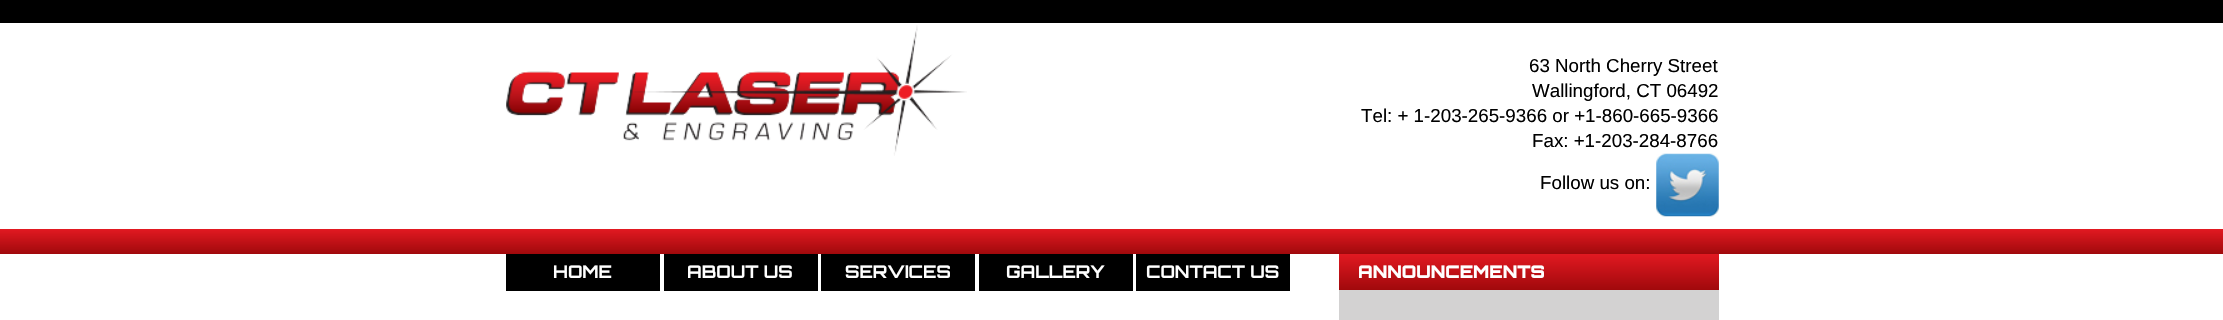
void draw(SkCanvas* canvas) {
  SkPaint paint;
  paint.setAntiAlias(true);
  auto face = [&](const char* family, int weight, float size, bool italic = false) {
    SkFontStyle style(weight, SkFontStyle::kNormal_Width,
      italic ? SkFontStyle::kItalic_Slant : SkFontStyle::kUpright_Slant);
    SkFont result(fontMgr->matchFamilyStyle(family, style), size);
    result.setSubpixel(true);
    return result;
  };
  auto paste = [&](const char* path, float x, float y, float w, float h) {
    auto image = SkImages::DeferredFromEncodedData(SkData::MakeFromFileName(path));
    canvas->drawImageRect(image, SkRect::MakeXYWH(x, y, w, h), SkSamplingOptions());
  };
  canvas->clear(0xffffffff);
  paint.setColor(0xff000000);
  canvas->drawRect(SkRect::MakeXYWH(0, 0, 2223, 23), paint);
  paste("img/1.png", 506, 25, 461, 131);
  paste("img/2.png", 1656, 153, 63, 64);
  {
    const SkColor colors[] = {0xffe21921, 0xffa0090c};
    const float stops[] = {0, 1};
    const SkPoint ends[] = {{1112, 229}, {1112, 254}};
    paint.setShader(SkGradientShader::MakeLinear(ends, colors, stops, 2, SkTileMode::kClamp));
    paint.setAlpha(255);
  }
  canvas->drawRect(SkRect::MakeXYWH(0, 229, 2223, 25), paint);
  paint.setShader(nullptr);
  {
    const struct { float x, y, w, h; SkColor color; } items[] = {
      {506, 254, 154, 37, 0xff000000},
      {664, 254, 154, 37, 0xff000000},
      {821, 254, 154, 37, 0xff000000},
      {979, 254, 154, 37, 0xff000000},
      {1136, 254, 154, 37, 0xff000000},
      {1339, 290, 380, 30, 0xffd3d2d2},
    };
    for (auto [x, y, w, h, color] : items) {
      paint.setColor(color);
      canvas->drawRect(SkRect::MakeXYWH(x, y, w, h), paint);
    }
  }
  {
    const SkColor colors[] = {0xffe21921, 0xffa0090c};
    const float stops[] = {0, 1};
    const SkPoint ends[] = {{1529, 254}, {1529, 290}};
    paint.setShader(SkGradientShader::MakeLinear(ends, colors, stops, 2, SkTileMode::kClamp));
    paint.setAlpha(255);
  }
  canvas->drawRect(SkRect::MakeXYWH(1339, 254, 380, 36), paint);
  auto f0 = face("Liberation Sans", 400, 18.75f);
  paint.setShader(nullptr);
  paint.setColor(0xff000000);
  {
    const struct { const char* s; float x, y; } items[] = {
      {"63 North Cherry Street", 1529, 72},
      {"Wallingford, CT 06492", 1532, 97},
      {"Tel: + 1-203-265-9366 or +1-860-665-9366", 1361, 122},
      {"Fax: +1-203-284-8766", 1532, 147},
      {"Follow us on:", 1540, 189},
    };
    for (auto [s, x, y] : items) {
      canvas->drawString(s, x, y, f0, paint);
    }
  }
  auto f1 = face("Orbitron", 700, 17.5f);
  paint.setColor(0xffffffff);
  {
    const struct { const char* s; float x, y; } items[] = {
      {"HOME", 553, 278},
      {"ABOUT US", 687, 278},
      {"SERVICES", 845, 278},
      {"GALLERY", 1006, 278},
      {"CONTACT US", 1146, 278},
    };
    for (auto [s, x, y] : items) {
      canvas->drawString(s, x, y, f1, paint);
    }
  }
  auto f2 = face("Orbitron", 900, 17.5f);
  canvas->drawString("ANNOUNCEMENTS", 1358, 278, f2, paint);
}
